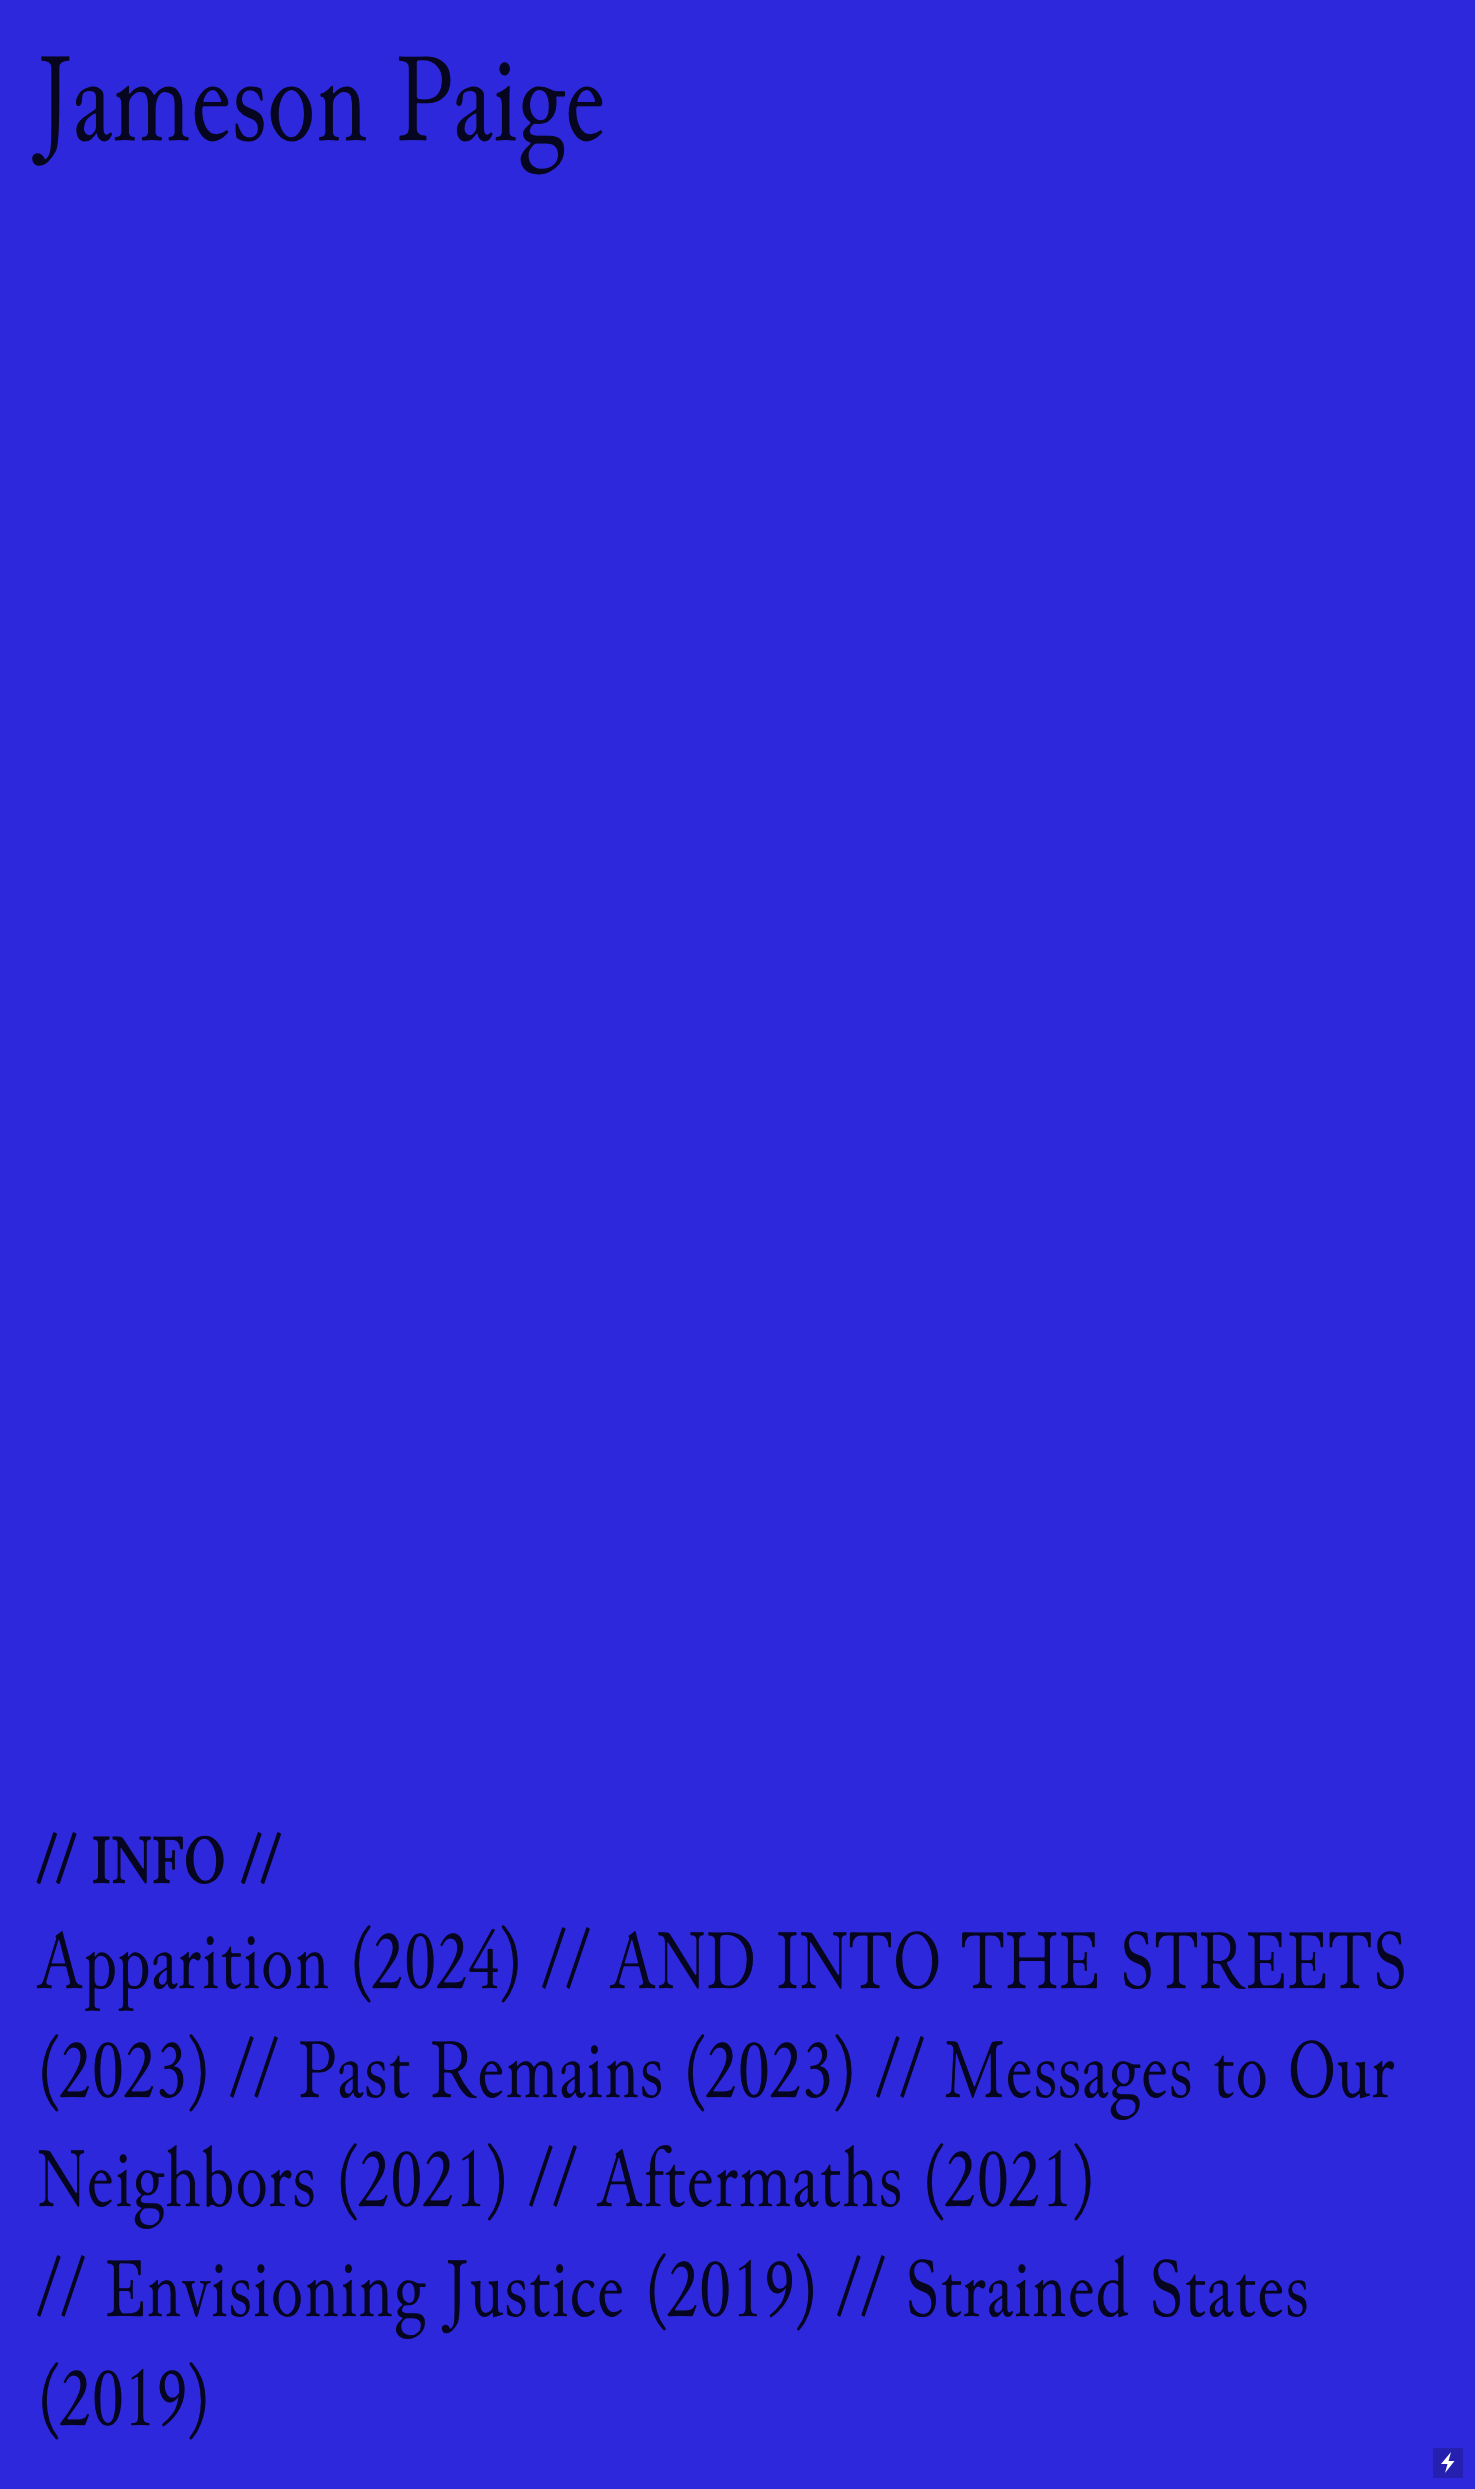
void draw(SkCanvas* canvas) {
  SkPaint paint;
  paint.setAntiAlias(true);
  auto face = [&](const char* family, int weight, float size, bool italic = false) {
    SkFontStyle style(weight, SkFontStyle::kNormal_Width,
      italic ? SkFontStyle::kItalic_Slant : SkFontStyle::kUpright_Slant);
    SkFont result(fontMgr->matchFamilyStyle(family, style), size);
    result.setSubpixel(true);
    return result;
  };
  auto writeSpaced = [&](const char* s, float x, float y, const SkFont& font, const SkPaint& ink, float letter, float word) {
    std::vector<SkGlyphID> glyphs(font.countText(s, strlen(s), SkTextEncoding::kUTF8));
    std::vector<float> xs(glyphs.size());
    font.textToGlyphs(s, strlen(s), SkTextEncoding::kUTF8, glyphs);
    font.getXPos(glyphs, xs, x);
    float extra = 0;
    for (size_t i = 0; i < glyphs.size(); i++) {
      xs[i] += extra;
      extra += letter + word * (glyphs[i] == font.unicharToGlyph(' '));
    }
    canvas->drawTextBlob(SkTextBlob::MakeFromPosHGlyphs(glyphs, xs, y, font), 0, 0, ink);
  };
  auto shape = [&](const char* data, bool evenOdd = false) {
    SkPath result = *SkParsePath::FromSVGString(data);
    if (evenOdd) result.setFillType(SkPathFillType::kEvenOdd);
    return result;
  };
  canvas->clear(0xff2e28dc);
  paint.setColor(0xff2520b0);
  canvas->drawRect(SkRect::MakeXYWH(1433, 2448, 30, 30), paint);
  paint.setColor(0xffffffff);
  canvas->drawPath(shape("M1454.5 2461H1448.5L1451 2452L1441 2464H1447.5L1445 2473Z"), paint);
  auto f0 = face("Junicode", 400, 126);
  paint.setColor(0xff070621);
  canvas->drawString("Jameson Paige", 37, 140, f0, paint);
  auto f1 = face("Junicode", 700, 70);
  canvas->drawString("// INFO //", 37, 1883, f1, paint);
  auto f2 = face("Junicode", 400, 84);
  {
    const struct { const char* s; float x, y; } items[] = {
      {"Apparition (2024)", 37, 1988},
      {"// AND INTO THE STREETS", 542, 1988},
      {"(2023)", 37, 2097},
      {"// Past Remains (2023)", 230, 2097},
      {"// Messages to Our", 876, 2097},
      {"Neighbors (2021)", 37, 2206},
      {"// Aftermaths (2021)", 529, 2206},
      {"// Envisioning Justice (2019)", 37, 2316},
      {"// Strained States", 837, 2316},
      {"(2019)", 37, 2425},
    };
    for (auto [s, x, y] : items) {
      writeSpaced(s, x, y, f2, paint, 0.85f, 0);
    }
  }
}
